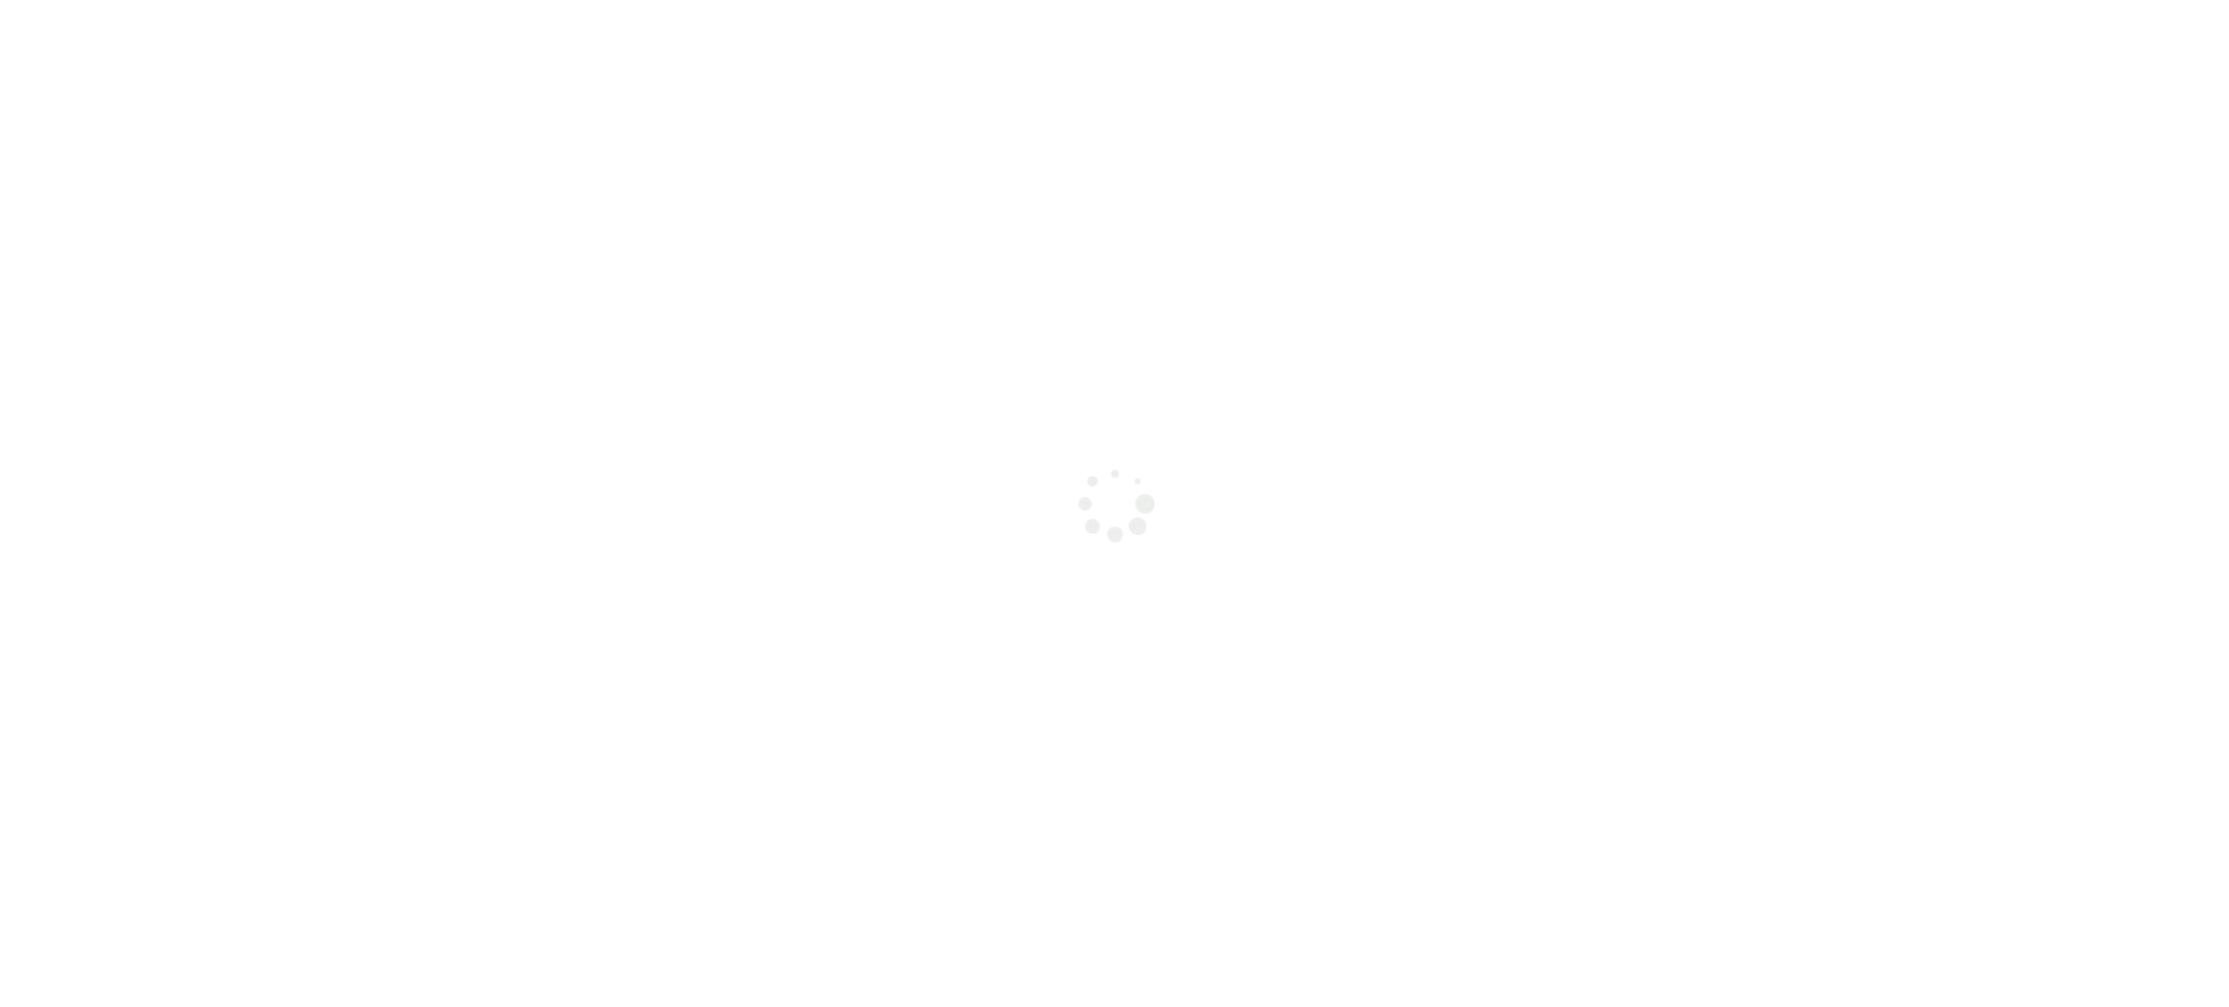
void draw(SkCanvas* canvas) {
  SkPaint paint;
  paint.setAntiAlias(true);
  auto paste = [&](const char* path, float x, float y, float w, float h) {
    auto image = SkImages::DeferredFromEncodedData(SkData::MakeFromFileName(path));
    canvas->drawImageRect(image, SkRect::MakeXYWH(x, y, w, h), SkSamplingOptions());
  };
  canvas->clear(0xffffffff);
  paste("img/1.png", 1078, 469, 77, 74);
}
